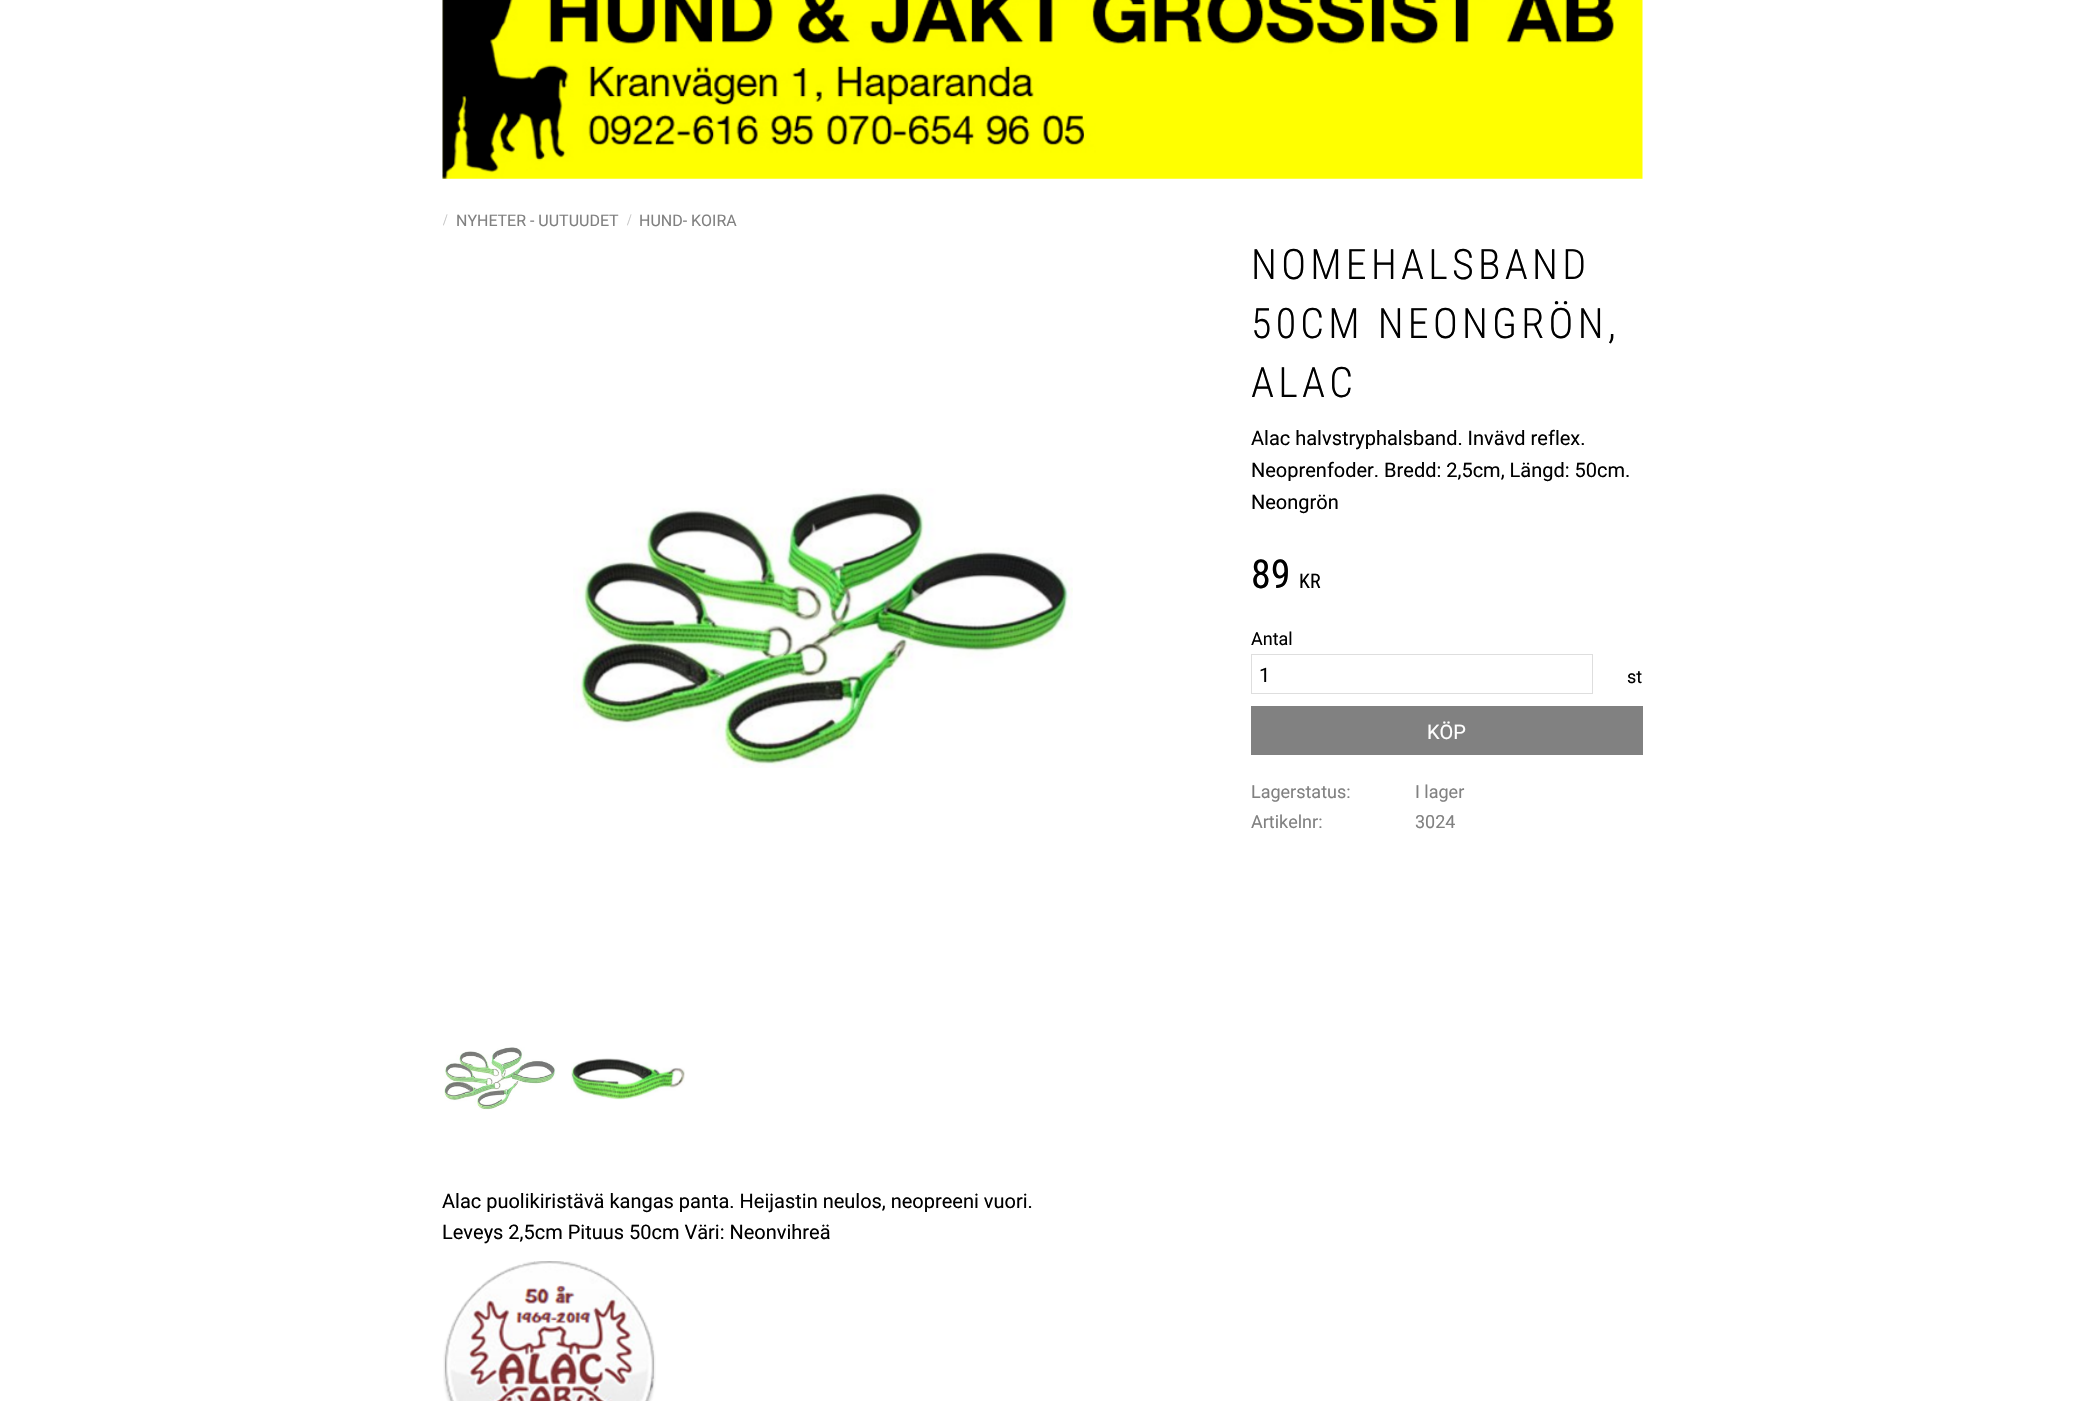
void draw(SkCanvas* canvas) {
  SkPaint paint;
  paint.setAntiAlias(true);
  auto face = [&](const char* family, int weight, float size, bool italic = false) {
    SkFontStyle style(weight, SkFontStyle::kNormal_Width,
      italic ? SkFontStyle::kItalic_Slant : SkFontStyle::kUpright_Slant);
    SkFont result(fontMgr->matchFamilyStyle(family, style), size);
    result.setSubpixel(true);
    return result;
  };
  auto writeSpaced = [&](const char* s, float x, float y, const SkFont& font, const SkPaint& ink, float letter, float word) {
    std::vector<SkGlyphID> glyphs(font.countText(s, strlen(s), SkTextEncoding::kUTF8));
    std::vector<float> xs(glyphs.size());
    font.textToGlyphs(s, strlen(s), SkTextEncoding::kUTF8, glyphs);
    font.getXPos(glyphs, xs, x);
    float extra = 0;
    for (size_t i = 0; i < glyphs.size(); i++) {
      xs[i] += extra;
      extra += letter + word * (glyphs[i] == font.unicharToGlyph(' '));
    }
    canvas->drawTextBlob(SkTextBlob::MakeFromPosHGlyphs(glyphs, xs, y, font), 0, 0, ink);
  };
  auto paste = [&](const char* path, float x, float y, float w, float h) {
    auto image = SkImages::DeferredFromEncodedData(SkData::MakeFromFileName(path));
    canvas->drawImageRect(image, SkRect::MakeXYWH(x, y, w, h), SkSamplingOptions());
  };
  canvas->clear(0xffffffff);
  paste("img/1.png", 442, 0, 1201, 179);
  paste("img/2.png", 573, 488, 500, 280);
  paste("img/3.png", 444, 1047, 112, 63);
  paste("img/4.png", 571, 1058, 114, 42);
  paint.setStroke(true);
  paint.setStrokeWidth(1);
  paint.setColor(0xffdedede);
  canvas->drawRect(SkRect::MakeXYWH(1251.5f, 654.5f, 341, 39), paint);
  paint.setStroke(false);
  paint.setColor(0xff818181);
  canvas->drawRect(SkRect::MakeXYWH(1251, 706, 392, 49), paint);
  paste("img/5.png", 443, 1261, 213, 140);
  auto f0 = face("Liberation Serif", 400, 16);
  paint.setColor(0xffc3c3c3);
  canvas->drawString("/", 443, 225, f0, paint);
  auto f1 = face("Roboto", 400, 16);
  paint.setColor(0xff818181);
  canvas->drawString("NYHETER - UUTUUDET", 456, 226, f1, paint);
  paint.setColor(0xffc3c3c3);
  canvas->drawString("/", 627, 225, f0, paint);
  paint.setColor(0xff818181);
  canvas->drawString("HUND- KOIRA", 639, 226, f1, paint);
  auto f2 = face("Roboto Condensed", 300, 42);
  paint.setColor(0xff000000);
  {
    const struct { const char* s; float x, y; } items[] = {
      {"NOMEHALSBAND", 1251, 279},
      {"50CM NEONGRÖN,", 1251, 338},
      {"ALAC", 1251, 397},
    };
    for (auto [s, x, y] : items) {
      writeSpaced(s, x, y, f2, paint, 4.25f, 0);
    }
  }
  auto f3 = face("Roboto", 400, 20);
  {
    const struct { const char* s; float x, y; } items[] = {
      {"Alac halvstryphalsband. Invävd reflex.", 1251, 445},
      {"Neoprenfoder. Bredd: 2,5cm, Längd: 50cm.", 1251, 477},
      {"Neongrön", 1251, 509},
    };
    for (auto [s, x, y] : items) {
      canvas->drawString(s, x, y, f3, paint);
    }
  }
  auto f4 = face("Roboto Condensed", 400, 40);
  canvas->drawString("89", 1251, 588, f4, paint);
  auto f5 = face("Roboto Condensed", 400, 20);
  canvas->drawString("KR", 1299, 588, f5, paint);
  auto f6 = face("Roboto", 400, 18);
  canvas->drawString("Antal", 1251, 645, f6, paint);
  canvas->drawString("1", 1259, 682, f3, paint);
  canvas->drawString("st", 1627, 683, f6, paint);
  paint.setColor(0xffffffff);
  canvas->drawString("KÖP", 1427, 739, f3, paint);
  paint.setColor(0xff818181);
  {
    const struct { const char* s; float x, y; } items[] = {
      {"Lagerstatus:", 1251, 798},
      {"I lager", 1415, 798},
      {"Artikelnr:", 1251, 828},
      {"3024", 1415, 828},
    };
    for (auto [s, x, y] : items) {
      canvas->drawString(s, x, y, f6, paint);
    }
  }
  paint.setColor(0xff000000);
  canvas->drawString("Alac puolikiristävä kangas panta. Heijastin neulos, neopreeni vuori.", 442, 1208, f3, paint);
  canvas->drawString("Leveys 2,5cm Pituus 50cm Väri: Neonvihreä", 442, 1239, f3, paint);
}
